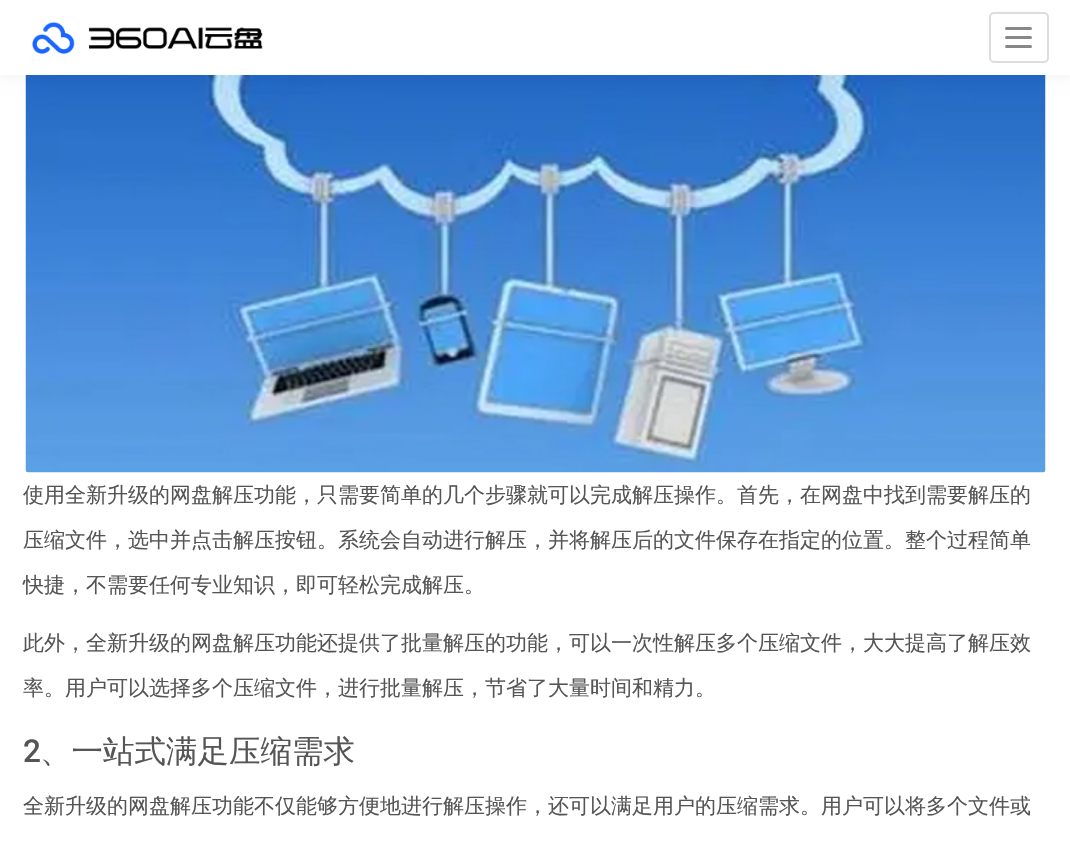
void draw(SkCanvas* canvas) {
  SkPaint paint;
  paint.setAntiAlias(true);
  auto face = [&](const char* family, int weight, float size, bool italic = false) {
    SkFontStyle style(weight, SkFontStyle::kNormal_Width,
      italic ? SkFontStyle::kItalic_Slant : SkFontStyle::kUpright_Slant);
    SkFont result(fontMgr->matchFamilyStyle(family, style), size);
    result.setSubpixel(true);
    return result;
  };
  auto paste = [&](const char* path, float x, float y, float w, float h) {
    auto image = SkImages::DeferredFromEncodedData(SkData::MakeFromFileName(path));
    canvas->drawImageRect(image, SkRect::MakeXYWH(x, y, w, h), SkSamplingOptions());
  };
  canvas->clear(0xffffffff);
  paste("img/2.png", 25, 75, 1021, 398);
  paint.setColor(0x0d000000);
  paint.setMaskFilter(SkMaskFilter::MakeBlur(kNormal_SkBlurStyle, 6));
  canvas->drawRect(SkRect::MakeXYWH(0, 2, 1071, 75), paint);
  paint.setMaskFilter(nullptr);
  paint.setColor(0xffffffff);
  canvas->drawRect(SkRect::MakeXYWH(0, 0, 1070, 75), paint);
  paste("img/1.png", 32, 22, 231, 32);
  paint.setStroke(true);
  paint.setStrokeWidth(2);
  paint.setColor(0xffdddddd);
  canvas->drawRoundRect(SkRect::MakeXYWH(990, 13, 58, 49), 4, 4, paint);
  paint.setStroke(false);
  paint.setColor(0xff888888);
  canvas->drawRoundRect(SkRect::MakeXYWH(1005, 27, 27, 3), 1.5f, 1.5f, paint);
  canvas->drawRoundRect(SkRect::MakeXYWH(1005, 36, 27, 3), 1.5f, 1.5f, paint);
  canvas->drawRoundRect(SkRect::MakeXYWH(1005, 45, 27, 3), 1.5f, 1.5f, paint);
  auto f0 = face("WenQuanYi Zen Hei", 500, 21);
  paint.setColor(0xff555555);
  {
    const struct { const char* s; float x, y; } items[] = {
      {"使用全新升级的网盘解压功能，只需要简单的几个步骤就可以完成解压操作。首先，在网盘中找到需要解压的", 23, 502},
      {"压缩文件，选中并点击解压按钮。系统会自动进行解压，并将解压后的文件保存在指定的位置。整个过程简单", 23, 547},
      {"快捷，不需要任何专业知识，即可轻松完成解压。", 23, 592},
      {"此外，全新升级的网盘解压功能还提供了批量解压的功能，可以一次性解压多个压缩文件，大大提高了解压效", 23, 650},
      {"率。用户可以选择多个压缩文件，进行批量解压，节省了大量时间和精力。", 23, 695},
    };
    for (auto [s, x, y] : items) {
      canvas->drawString(s, x, y, f0, paint);
    }
  }
  auto f1 = face("Roboto", 500, 31.5f);
  canvas->drawString("2", 23, 762, f1, paint);
  auto f2 = face("WenQuanYi Zen Hei", 500, 31.5f);
  canvas->drawString("、一站式满足压缩需求", 40, 762, f2, paint);
  canvas->drawString("全新升级的网盘解压功能不仅能够方便地进行解压操作，还可以满足用户的压缩需求。用户可以将多个文件或", 23, 813, f0, paint);
}
